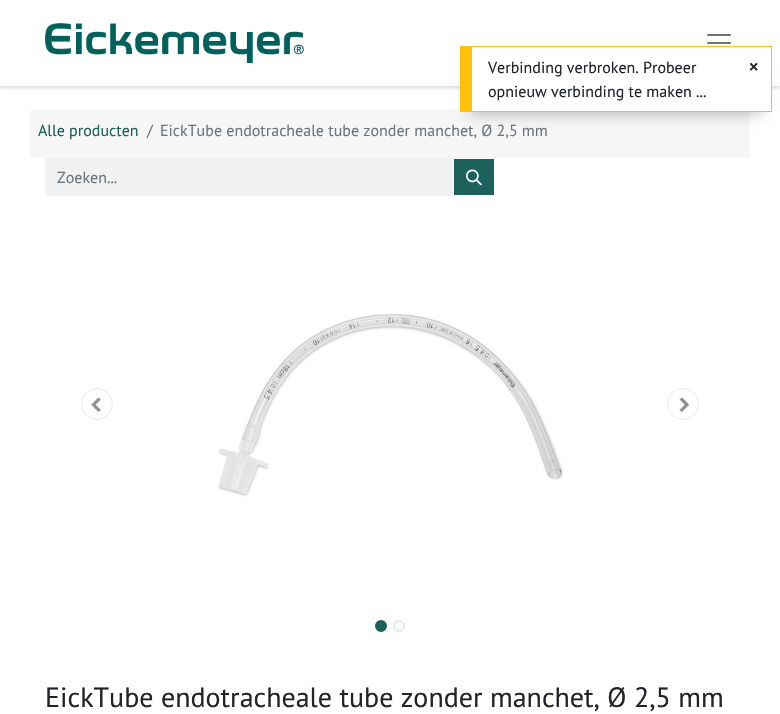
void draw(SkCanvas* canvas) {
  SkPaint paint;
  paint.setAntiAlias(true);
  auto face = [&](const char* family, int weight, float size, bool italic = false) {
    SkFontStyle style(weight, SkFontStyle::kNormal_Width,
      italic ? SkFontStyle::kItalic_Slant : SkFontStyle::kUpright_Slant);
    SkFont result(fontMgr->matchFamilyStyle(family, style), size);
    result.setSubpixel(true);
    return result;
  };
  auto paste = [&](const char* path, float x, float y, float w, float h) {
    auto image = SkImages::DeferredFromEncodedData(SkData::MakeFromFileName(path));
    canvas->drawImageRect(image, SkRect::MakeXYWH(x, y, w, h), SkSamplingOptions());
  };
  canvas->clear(0xffffffff);
  paint.setColor(0xfff6f6f6);
  canvas->drawRoundRect(SkRect::MakeXYWH(30, 110, 720, 48), 4, 4, paint);
  paint.setColor(0x40000000);
  paint.setMaskFilter(SkMaskFilter::MakeBlur(kNormal_SkBlurStyle, 7));
  canvas->drawRect(SkRect::MakeXYWH(470, 68, 292, 46), paint);
  paint.setMaskFilter(nullptr);
  canvas->save();
  canvas->clipRect(SkRect::MakeXYWH(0, 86, 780, 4));
  paint.setColor(0x26000000);
  paint.setMaskFilter(SkMaskFilter::MakeBlur(kNormal_SkBlurStyle, 2));
  canvas->drawRect(SkRect::MakeXYWH(0, 2, 780, 86), paint);
  paint.setMaskFilter(nullptr);
  canvas->restore();
  {
    const struct { float x, y, w, h; SkColor color; } items[] = {
      {472, 56, 299, 55, 0xffffffff},
      {472, 46, 300, 1, 0xffffc107},
      {771, 46, 1, 66, 0xffffc107},
      {472, 111, 300, 1, 0xffffc107},
      {460, 46, 12, 66, 0xffffc107},
    };
    for (auto [x, y, w, h, color] : items) {
      paint.setColor(color);
      canvas->drawRect(SkRect::MakeXYWH(x, y, w, h), paint);
    }
  }
  paste("img/1.png", 45, 23, 259, 40);
  paste("img/2.png", 707, 34, 24, 10);
  paint.setColor(0xfff1f1f1);
  canvas->drawRect(SkRect::MakeXYWH(45, 158, 408, 38), paint);
  paint.setColor(0xff1c615c);
  canvas->drawRect(SkRect::MakeXYWH(454, 159, 40, 36), paint);
  paste("img/3.png", 466, 169, 16, 17);
  paint.setStroke(true);
  paint.setStrokeWidth(1);
  paint.setColor(0xffe7eaed);
  canvas->drawCircle(97, 404, 15.5f, paint);
  paste("img/4.png", 91, 397, 10, 15);
  paste("img/5.png", 218, 313, 346, 184);
  canvas->drawCircle(683, 404, 15.5f, paint);
  paste("img/6.png", 679, 397, 10, 15);
  paint.setStroke(false);
  paint.setColor(0xff1c615c);
  canvas->drawCircle(381, 626, 5, paint);
  paint.setStroke(true);
  paint.setStrokeWidth(2);
  canvas->drawCircle(381, 626, 5, paint);
  paint.setColor(0xffe7eaed);
  canvas->drawCircle(399, 626, 5, paint);
  auto f0 = face("PT Sans", 400, 16);
  paint.setStroke(false);
  paint.setColor(0xff212529);
  canvas->drawString("Verbinding verbroken. Probeer", 488, 73, f0, paint);
  canvas->drawString("opnieuw verbinding te maken ...", 488, 97, f0, paint);
  auto f1 = face("Liberation Sans", 700, 16);
  canvas->drawString("×", 749, 72, f1, paint);
  paint.setColor(0xff1c615c);
  canvas->drawString("Alle producten", 38, 136, f0, paint);
  paint.setColor(0xff6c757d);
  {
    const struct { const char* s; float x, y; } items[] = {
      {"/", 147, 136},
      {"EickTube endotracheale tube zonder manchet, Ø 2,5 mm", 160, 136},
      {"Zoeken...", 57, 183},
    };
    for (auto [s, x, y] : items) {
      canvas->drawString(s, x, y, f0, paint);
    }
  }
  auto f2 = face("PT Sans", 400, 28);
  paint.setColor(0xff212529);
  canvas->drawString("EickTube endotracheale tube zonder manchet, Ø 2,5 mm", 45, 707, f2, paint);
}
